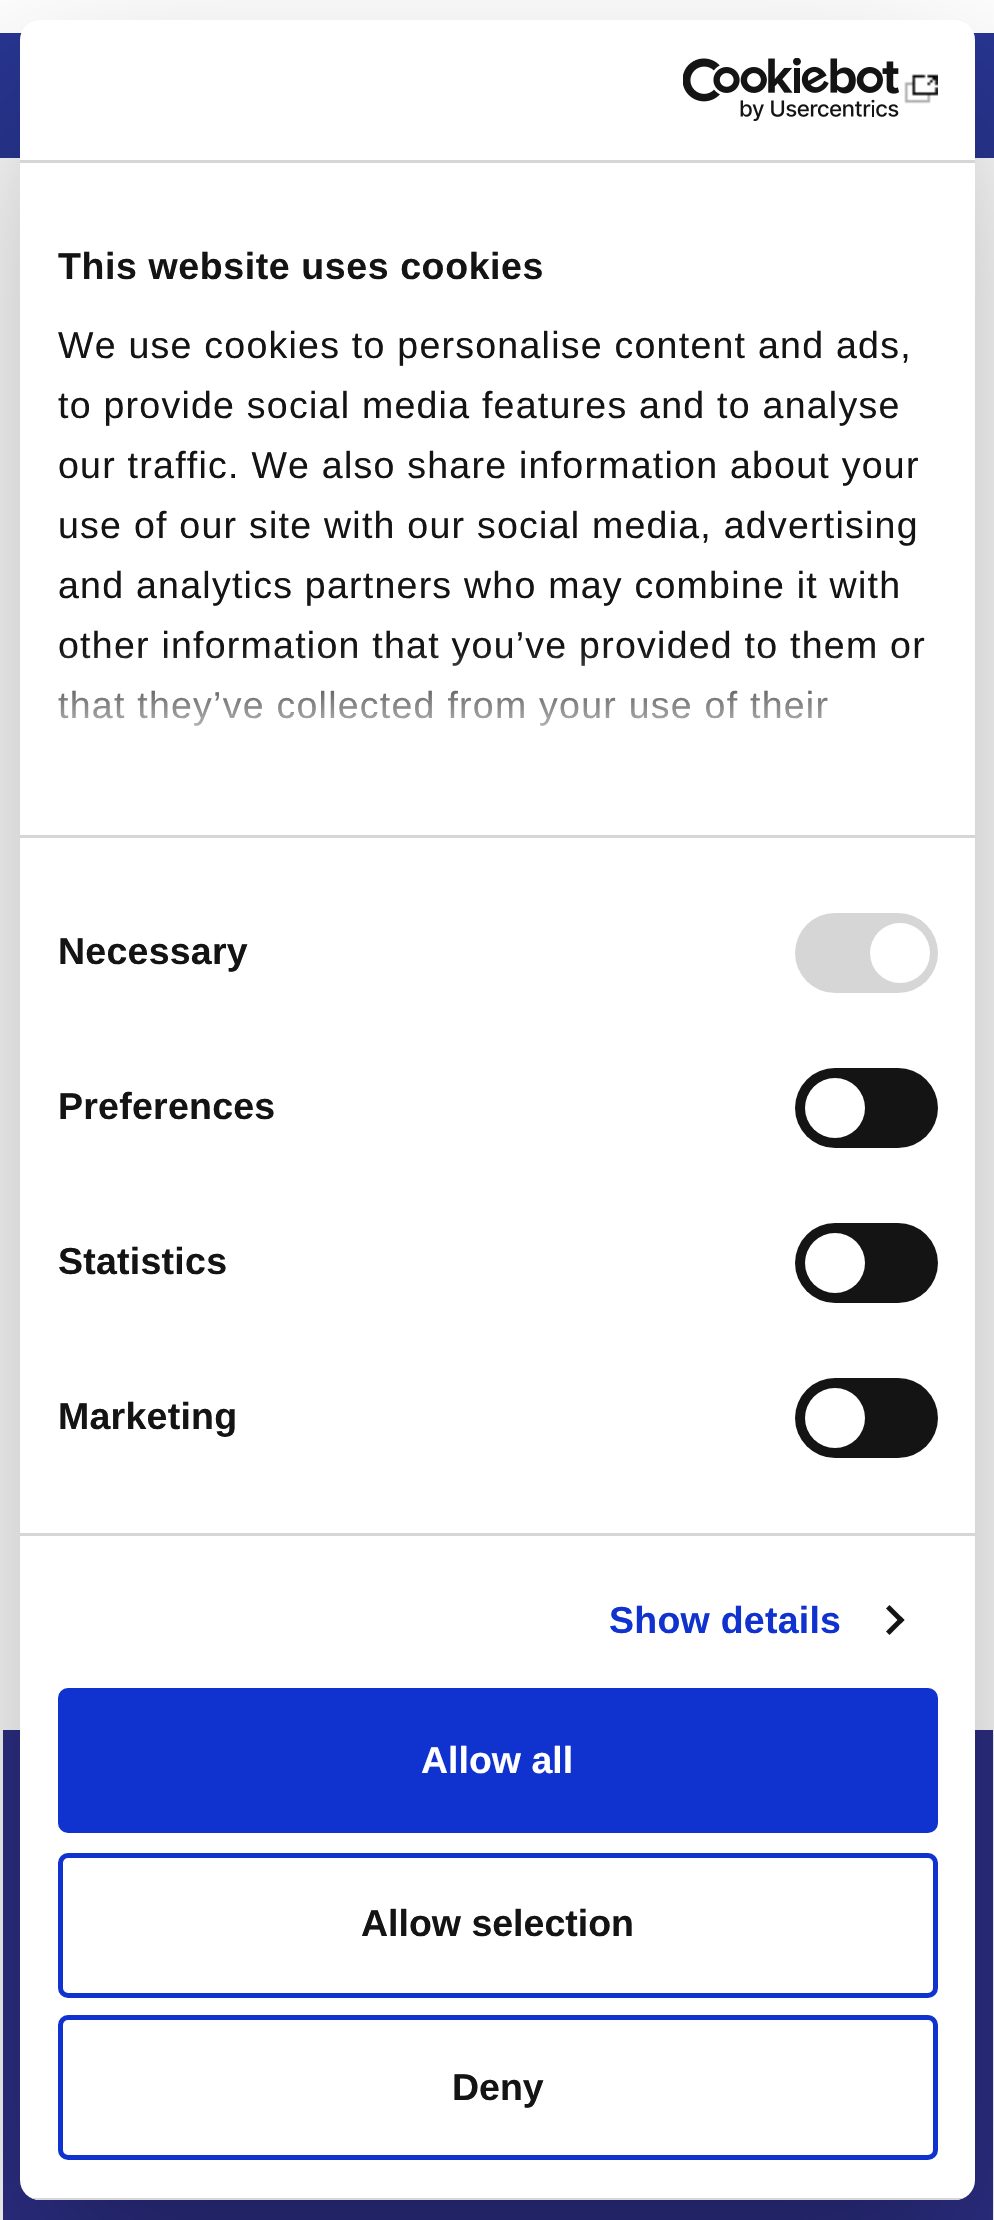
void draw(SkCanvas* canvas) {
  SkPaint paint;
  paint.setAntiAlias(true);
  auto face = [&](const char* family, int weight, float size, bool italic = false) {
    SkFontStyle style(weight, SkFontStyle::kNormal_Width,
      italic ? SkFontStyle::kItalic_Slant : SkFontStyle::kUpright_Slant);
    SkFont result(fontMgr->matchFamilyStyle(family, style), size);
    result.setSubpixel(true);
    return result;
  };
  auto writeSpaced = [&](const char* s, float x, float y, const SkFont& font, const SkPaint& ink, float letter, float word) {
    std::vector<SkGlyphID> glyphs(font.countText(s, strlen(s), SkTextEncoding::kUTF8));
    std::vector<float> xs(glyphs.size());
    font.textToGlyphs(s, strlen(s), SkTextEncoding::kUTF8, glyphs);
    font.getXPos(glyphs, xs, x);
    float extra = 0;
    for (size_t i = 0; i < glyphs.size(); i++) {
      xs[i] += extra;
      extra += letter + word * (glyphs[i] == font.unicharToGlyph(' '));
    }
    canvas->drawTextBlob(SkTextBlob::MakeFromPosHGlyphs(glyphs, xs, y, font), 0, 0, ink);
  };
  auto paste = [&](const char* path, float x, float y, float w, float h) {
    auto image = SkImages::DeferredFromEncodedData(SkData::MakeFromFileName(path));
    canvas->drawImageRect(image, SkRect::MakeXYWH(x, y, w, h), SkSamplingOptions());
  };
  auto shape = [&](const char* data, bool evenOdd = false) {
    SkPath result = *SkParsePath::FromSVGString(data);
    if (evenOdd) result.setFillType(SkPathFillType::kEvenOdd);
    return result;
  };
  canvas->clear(0xffffffff);
  paint.setColor(0xff283591);
  canvas->drawRect(SkRect::MakeXYWH(0, 33, 994, 125), paint);
  paint.setColor(0xff2c2e85);
  canvas->drawRect(SkRect::MakeXYWH(3, 1730, 990, 490), paint);
  paint.setColor(0x4d000000);
  paint.setMaskFilter(SkMaskFilter::MakeBlur(kNormal_SkBlurStyle, 85));
  canvas->drawRoundRect(SkRect::MakeXYWH(20, 100, 955, 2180), 20, 20, paint);
  paint.setMaskFilter(nullptr);
  paint.setColor(0xffffffff);
  canvas->drawRoundRect(SkRect::MakeXYWH(20, 20, 955, 2180), 20, 20, paint);
  paint.setColor(0xffd6d6d6);
  canvas->drawRect(SkRect::MakeXYWH(20, 160, 955, 3), paint);
  paste("img/1.png", 683, 58, 216, 63);
  paste("img/2.png", 904, 74, 34, 30);
  canvas->drawRect(SkRect::MakeXYWH(20, 835, 955, 3), paint);
  canvas->drawRect(SkRect::MakeXYWH(20, 1533, 955, 3), paint);
  canvas->drawRoundRect(SkRect::MakeXYWH(795, 913, 143, 80), 40, 40, paint);
  paint.setColor(0xffffffff);
  canvas->drawCircle(900, 953, 30, paint);
  paint.setColor(0xff141414);
  canvas->drawRoundRect(SkRect::MakeXYWH(795, 1068, 143, 80), 40, 40, paint);
  paint.setColor(0xffffffff);
  canvas->drawCircle(835, 1108, 30, paint);
  paint.setColor(0xff141414);
  canvas->drawRoundRect(SkRect::MakeXYWH(795, 1223, 143, 80), 40, 40, paint);
  paint.setColor(0xffffffff);
  canvas->drawCircle(835, 1263, 30, paint);
  paint.setColor(0xff141414);
  canvas->drawRoundRect(SkRect::MakeXYWH(795, 1378, 143, 80), 40, 40, paint);
  paint.setColor(0xffffffff);
  canvas->drawCircle(835, 1418, 30, paint);
  paint.setColor(0xff141414);
  canvas->drawPath(shape("M889.5 1605L904.5 1620L901 1623.5L886 1608.5Z"), paint);
  canvas->drawPath(shape("M901 1616.5L904.5 1620L889.5 1635L886 1631.5Z"), paint);
  canvas->save();
  canvas->clipPath(shape("M40 20H955C966 20 975 29 975 40V2180C975 2191 966 2200 955 2200H40C29 2200 20 2191 20 2180V40C20 29 29 20 40 20Z"), true);
  paint.setColor(0xffd6d6d6);
  canvas->drawRect(SkRect::MakeXYWH(31, 2198, 933, 2), paint);
  canvas->restore();
  paint.setColor(0xff1032cf);
  canvas->drawRoundRect(SkRect::MakeXYWH(60.5f, 1690.5f, 875, 140), 7.5f, 7.5f, paint);
  paint.setStroke(true);
  paint.setStrokeWidth(5);
  canvas->drawRoundRect(SkRect::MakeXYWH(60.5f, 1690.5f, 875, 140), 7.5f, 7.5f, paint);
  canvas->drawRoundRect(SkRect::MakeXYWH(60.5f, 1855.5f, 875, 140), 7.5f, 7.5f, paint);
  canvas->drawRoundRect(SkRect::MakeXYWH(60.5f, 2017.5f, 875, 140), 7.5f, 7.5f, paint);
  auto f0 = face("Liberation Sans", 700, 37.5f);
  paint.setStroke(false);
  paint.setColor(0xff141414);
  writeSpaced("This website uses cookies", 58, 279, f0, paint, 0.6f, 0);
  auto f1 = face("Liberation Sans", 400, 37.5f);
  {
    const struct { const char* s; float x, y; } items[] = {
      {"We use cookies to personalise content and ads,", 58, 358},
      {"to provide social media features and to analyse", 58, 418},
      {"our traffic. We also share information about your", 58, 478},
      {"use of our site with our social media, advertising", 58, 538},
      {"and analytics partners who may combine it with", 58, 598},
      {"other information that you’ve provided to them or", 58, 658},
      {"that they’ve collected from your use of their", 58, 718},
    };
    for (auto [s, x, y] : items) {
      writeSpaced(s, x, y, f1, paint, 1.25f, 0);
    }
  }
  {
    const SkColor colors[] = {0xffffffff, 0xccffffff, 0x00ffffff};
    const float stops[] = {0, 0.5f, 1};
    const SkPoint ends[] = {{481, 835}, {481, 648}};
    paint.setShader(SkGradientShader::MakeLinear(ends, colors, stops, 3, SkTileMode::kClamp));
    paint.setAlpha(255);
  }
  canvas->drawRect(SkRect::MakeXYWH(58, 651, 860, 75), paint);
  paint.setShader(nullptr);
  paint.setColor(0xff141414);
  {
    const struct { const char* s; float x, y; } items[] = {
      {"Necessary", 58, 964},
      {"Preferences", 58, 1119},
      {"Statistics", 58, 1274},
      {"Marketing", 58, 1429},
    };
    for (auto [s, x, y] : items) {
      writeSpaced(s, x, y, f0, paint, 0.25f, 0);
    }
  }
  paint.setColor(0xff1032cf);
  writeSpaced("Show details", 609, 1633, f0, paint, 0.25f, 0);
  paint.setColor(0xffffffff);
  canvas->drawString("Allow all", 421, 1773, f0, paint);
  paint.setColor(0xff141414);
  canvas->drawString("Allow selection", 361, 1936, f0, paint);
  canvas->drawString("Deny", 452, 2100, f0, paint);
}
